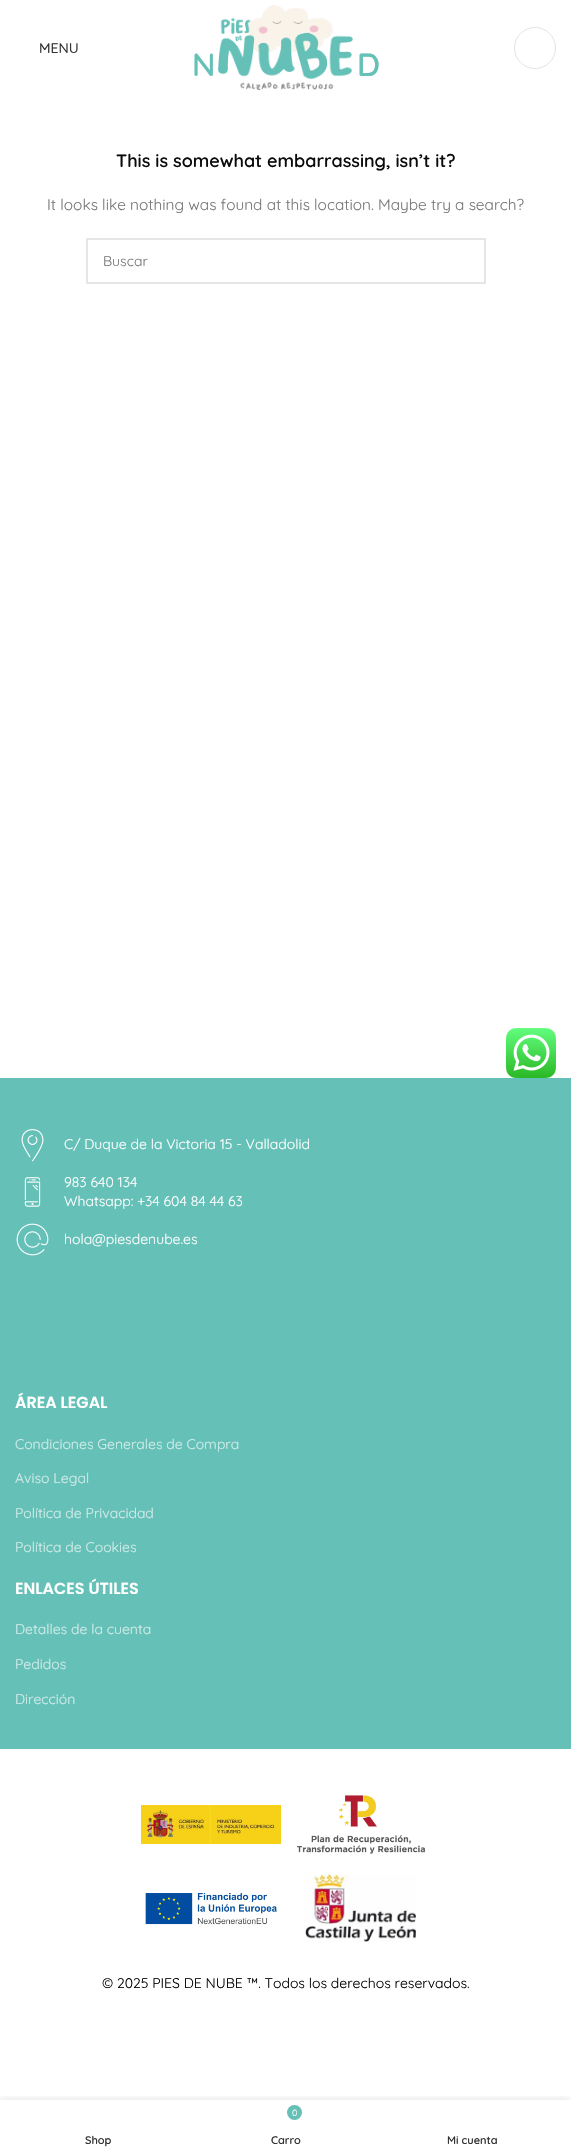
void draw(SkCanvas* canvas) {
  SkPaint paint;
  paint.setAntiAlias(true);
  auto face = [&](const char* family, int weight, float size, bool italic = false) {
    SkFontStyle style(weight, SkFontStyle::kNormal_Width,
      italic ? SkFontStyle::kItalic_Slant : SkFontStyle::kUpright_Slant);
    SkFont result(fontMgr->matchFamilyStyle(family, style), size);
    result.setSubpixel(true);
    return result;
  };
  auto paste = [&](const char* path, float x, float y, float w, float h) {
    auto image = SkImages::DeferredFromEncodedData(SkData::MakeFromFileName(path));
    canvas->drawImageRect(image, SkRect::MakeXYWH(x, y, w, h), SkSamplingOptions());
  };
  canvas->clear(0xffffffff);
  paste("img/1.png", 218, 5, 135, 85);
  paint.setStroke(true);
  paint.setStrokeWidth(1);
  paint.setColor(0xffe4e4e4);
  canvas->drawCircle(535, 48, 20.5f, paint);
  paint.setStrokeWidth(2);
  paint.setColor(0xffe6e6e6);
  canvas->drawRect(SkRect::MakeXYWH(87, 239, 398, 44), paint);
  paint.setStroke(false);
  paint.setColor(0xff65c0b7);
  canvas->drawRect(SkRect::MakeXYWH(0, 1078, 571, 671), paint);
  paste("img/2.png", 21, 1129, 23, 33);
  paste("img/3.png", 24, 1177, 17, 30);
  paste("img/4.png", 16, 1223, 33, 33);
  paste("img/5.png", 141, 1805, 140, 39);
  paste("img/6.png", 297, 1795, 128, 59);
  paste("img/7.png", 145, 1893, 132, 32);
  paste("img/8.png", 305, 1874, 111, 68);
  paste("img/9.png", 506, 1028, 50, 50);
  canvas->save();
  canvas->clipRect(SkRect::MakeXYWH(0, 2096, 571, 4));
  paint.setColor(0x1f000000);
  paint.setMaskFilter(SkMaskFilter::MakeBlur(kNormal_SkBlurStyle, 4.5f));
  canvas->drawRect(SkRect::MakeXYWH(0, 2100, 571, 55), paint);
  paint.setMaskFilter(nullptr);
  canvas->restore();
  paint.setColor(0xff65c0b7);
  canvas->drawCircle(294.5f, 2112.5f, 7.5f, paint);
  auto f0 = face("Quicksand", 500, 14);
  paint.setColor(0xff333333);
  canvas->drawString("MENU", 39, 53, f0, paint);
  auto f1 = face("Quicksand", 600, 32);
  paint.setColor(0xff65c0b7);
  canvas->drawString("N", 192, 76, f1, paint);
  canvas->drawString("D", 357, 76, f1, paint);
  auto f2 = face("Quicksand", 600, 18);
  paint.setColor(0xff0c0b0b);
  canvas->drawString("This is somewhat embarrassing, isn’t it?", 116, 167, f2, paint);
  auto f3 = face("Quicksand", 400, 15.4f);
  paint.setColor(0xff777777);
  canvas->drawString("It looks like nothing was found at this location. Maybe try a search?", 47, 210, f3, paint);
  auto f4 = face("Quicksand", 400, 14);
  canvas->drawString("Buscar", 103, 266, f4, paint);
  paint.setColor(0xffffffff);
  {
    const struct { const char* s; float x, y; } items[] = {
      {"C/ Duque de la Victoria 15 - Valladolid", 64, 1149},
      {"983 640 134", 64, 1187},
      {"Whatsapp: +34 604 84 44 63", 64, 1206},
      {"hola@piesdenube.es", 64, 1244},
    };
    for (auto [s, x, y] : items) {
      canvas->drawString(s, x, y, f4, paint);
    }
  }
  auto f5 = face("Poppins", 600, 16);
  canvas->drawString("ÁREA LEGAL", 15, 1408, f5, paint);
  paint.setColor(0xffd1ece9);
  {
    const struct { const char* s; float x, y; } items[] = {
      {"Condiciones Generales de Compra", 15, 1449},
      {"Aviso Legal", 15, 1483},
      {"Política de Privacidad", 15, 1518},
      {"Política de Cookies", 15, 1552},
    };
    for (auto [s, x, y] : items) {
      canvas->drawString(s, x, y, f4, paint);
    }
  }
  paint.setColor(0xffffffff);
  canvas->drawString("ENLACES ÚTILES", 15, 1594, f5, paint);
  paint.setColor(0xffd1ece9);
  {
    const struct { const char* s; float x, y; } items[] = {
      {"Detalles de la cuenta", 15, 1634},
      {"Pedidos", 15, 1669},
      {"Dirección", 15, 1704},
    };
    for (auto [s, x, y] : items) {
      canvas->drawString(s, x, y, f4, paint);
    }
  }
  paint.setColor(0xff000000);
  canvas->drawString("© 2025 PIES DE NUBE ™. Todos los derechos reservados.", 102, 1988, f4, paint);
  auto f6 = face("Quicksand", 600, 11);
  paint.setColor(0xff333333);
  canvas->drawString("Shop", 85, 2144, f6, paint);
  auto f7 = face("Quicksand", 400, 9);
  paint.setColor(0xffffffff);
  canvas->drawString("0", 292, 2116, f7, paint);
  paint.setColor(0xff333333);
  canvas->drawString("Carro", 271, 2144, f6, paint);
  canvas->drawString("Mi cuenta", 447, 2144, f6, paint);
}
